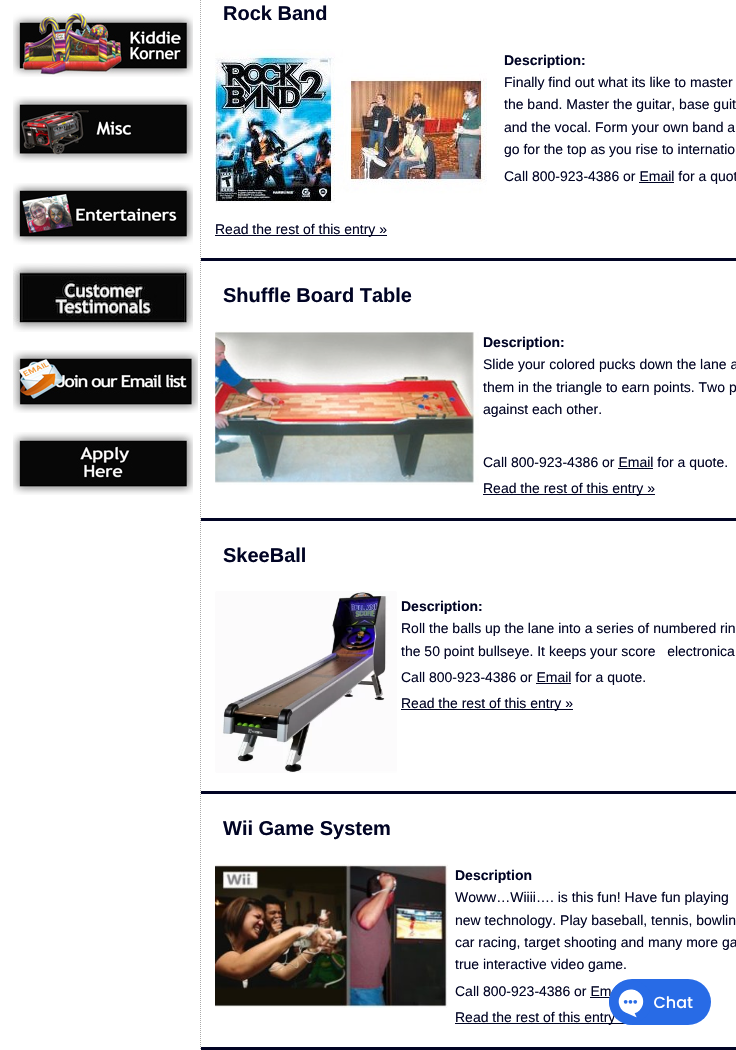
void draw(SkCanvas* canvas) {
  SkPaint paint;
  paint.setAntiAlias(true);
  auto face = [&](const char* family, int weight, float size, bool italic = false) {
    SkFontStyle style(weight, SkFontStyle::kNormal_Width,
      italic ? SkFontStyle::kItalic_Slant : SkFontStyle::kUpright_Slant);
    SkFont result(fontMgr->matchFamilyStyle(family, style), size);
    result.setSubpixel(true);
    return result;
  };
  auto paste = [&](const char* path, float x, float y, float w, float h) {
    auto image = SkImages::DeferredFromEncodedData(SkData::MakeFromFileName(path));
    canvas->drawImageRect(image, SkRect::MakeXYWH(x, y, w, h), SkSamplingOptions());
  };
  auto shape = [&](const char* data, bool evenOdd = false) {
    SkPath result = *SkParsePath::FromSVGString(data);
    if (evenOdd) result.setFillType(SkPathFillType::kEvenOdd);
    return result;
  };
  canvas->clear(0xffffffff);
  paste("img/1.png", 13, 12, 180, 65);
  paste("img/2.png", 13, 96, 180, 67);
  paste("img/3.png", 13, 183, 180, 62);
  paste("img/4.png", 13, 263, 180, 69);
  paste("img/5.png", 13, 350, 185, 63);
  paste("img/6.png", 13, 432, 180, 63);
  paint.setStroke(true);
  paint.setStrokeWidth(1);
  paint.setColor(0xffaaaaaa);
  paint.setPathEffect(SkDashPathEffect::Make({{1, 1}}, 0));
  canvas->drawPath(shape("M200.5-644V1050"), paint);
  paint.setPathEffect(nullptr);
  paint.setStroke(false);
  paint.setColor(0xff010424);
  canvas->drawRect(SkRect::MakeXYWH(201, 258, 535, 3), paint);
  paste("img/7.png", 215, 49, 272, 154);
  {
    const struct { float x, y, w, h; SkColor color; } items[] = {
      {639, 182, 35, 1, 0xff010424},
      {215, 235, 172, 1, 0xff010424},
      {201, 518, 535, 3, 0xff010424},
    };
    for (auto [x, y, w, h, color] : items) {
      paint.setColor(color);
      canvas->drawRect(SkRect::MakeXYWH(x, y, w, h), paint);
    }
  }
  paste("img/8.png", 215, 331, 264, 154);
  {
    const struct { float x, y, w, h; SkColor color; } items[] = {
      {618, 468, 35, 1, 0xff010424},
      {483, 494, 172, 1, 0xff010424},
      {201, 791, 535, 3, 0xff010424},
    };
    for (auto [x, y, w, h, color] : items) {
      paint.setColor(color);
      canvas->drawRect(SkRect::MakeXYWH(x, y, w, h), paint);
    }
  }
  paste("img/9.png", 215, 591, 182, 182);
  {
    const struct { float x, y, w, h; SkColor color; } items[] = {
      {536, 683, 35, 1, 0xff010424},
      {401, 709, 172, 1, 0xff010424},
      {201, 1047, 535, 3, 0xff010424},
    };
    for (auto [x, y, w, h, color] : items) {
      paint.setColor(color);
      canvas->drawRect(SkRect::MakeXYWH(x, y, w, h), paint);
    }
  }
  paste("img/10.png", 215, 864, 233, 144);
  canvas->drawRect(SkRect::MakeXYWH(590, 997, 20, 1), paint);
  canvas->drawRect(SkRect::MakeXYWH(455, 1023, 172, 1), paint);
  auto f0 = face("Liberation Sans", 700, 20);
  canvas->drawString("Rock Band", 223, 20, f0, paint);
  auto f1 = face("Liberation Sans", 700, 14);
  canvas->drawString("Description:", 504, 65, f1, paint);
  auto f2 = face("Liberation Sans", 400, 14);
  {
    const struct { const char* s; float x, y; } items[] = {
      {"Finally find out what its like to master", 504, 87},
      {"the band. Master the guitar, base guit", 504, 109},
      {"and the vocal. Form your own band a", 504, 132},
      {"go for the top as you rise to internatio", 504, 154},
      {"Call 800-923-4386 or Email for a quot", 504, 181},
      {"Read the rest of this entry »", 215, 234},
    };
    for (auto [s, x, y] : items) {
      canvas->drawString(s, x, y, f2, paint);
    }
  }
  canvas->drawString("Shuffle Board Table", 223, 302, f0, paint);
  canvas->drawString("Description:", 483, 347, f1, paint);
  {
    const struct { const char* s; float x, y; } items[] = {
      {"Slide your colored pucks down the lane a", 483, 369},
      {"them in the triangle to earn points. Two p", 483, 392},
      {"against each other.", 483, 414},
      {"Call 800-923-4386 or Email for a quote.", 483, 467},
      {"Read the rest of this entry »", 483, 493},
    };
    for (auto [s, x, y] : items) {
      canvas->drawString(s, x, y, f2, paint);
    }
  }
  canvas->drawString("SkeeBall", 223, 562, f0, paint);
  canvas->drawString("Description:", 401, 611, f1, paint);
  {
    const struct { const char* s; float x, y; } items[] = {
      {"Roll the balls up the lane into a series of numbered rin", 401, 633},
      {"the 50 point bullseye. It keeps your score   electronica", 401, 656},
      {"Call 800-923-4386 or Email for a quote.", 401, 682},
      {"Read the rest of this entry »", 401, 708},
    };
    for (auto [s, x, y] : items) {
      canvas->drawString(s, x, y, f2, paint);
    }
  }
  canvas->drawString("Wii Game System", 223, 835, f0, paint);
  canvas->drawString("Description", 455, 880, f1, paint);
  {
    const struct { const char* s; float x, y; } items[] = {
      {"Woww…Wiiii…. is this fun! Have fun playing", 455, 902},
      {"new technology. Play baseball, tennis, bowlin", 455, 925},
      {"car racing, target shooting and many more ga", 455, 947},
      {"true interactive video game.", 455, 969},
      {"Call 800-923-4386 or Em", 455, 996},
      {"Read the rest of this entry", 455, 1022},
    };
    for (auto [s, x, y] : items) {
      canvas->drawString(s, x, y, f2, paint);
    }
  }
  paste("img/11.png", 609, 979, 102, 46);
}
